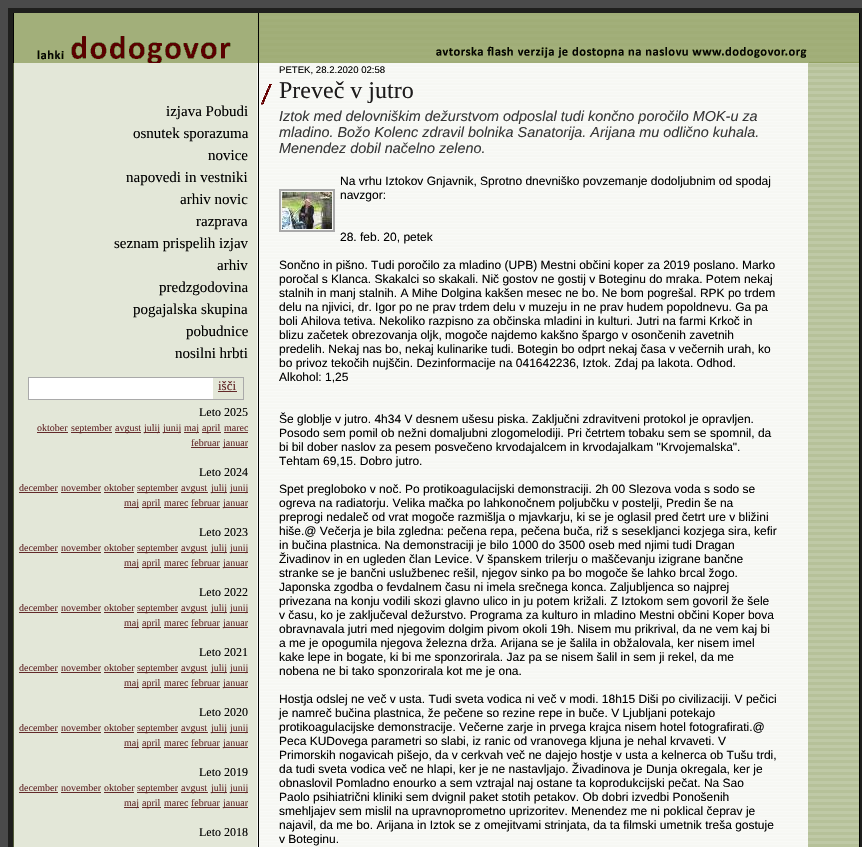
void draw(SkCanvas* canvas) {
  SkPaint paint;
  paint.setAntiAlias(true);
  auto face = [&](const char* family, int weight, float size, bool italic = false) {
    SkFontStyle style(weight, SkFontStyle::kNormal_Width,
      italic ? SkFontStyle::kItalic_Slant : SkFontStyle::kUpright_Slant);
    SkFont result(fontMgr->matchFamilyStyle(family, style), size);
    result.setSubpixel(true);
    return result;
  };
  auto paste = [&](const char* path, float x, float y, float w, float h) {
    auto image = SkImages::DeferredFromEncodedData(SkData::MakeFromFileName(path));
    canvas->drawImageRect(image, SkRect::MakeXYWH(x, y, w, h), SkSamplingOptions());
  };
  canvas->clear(0xff4a4a4a);
  paste("img/1.png", 13, 13, 847, 834);
  paint.setStroke(true);
  paint.setStrokeWidth(5);
  paint.setColor(0xff1f1f1d);
  canvas->drawRect(SkRect::MakeXYWH(10.5f, 10.5f, 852, 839), paint);
  paste("img/2.png", 13, 13, 846, 50);
  paint.setStroke(false);
  {
    const struct { float x, y, w, h; SkColor color; } items[] = {
      {29, 378, 184, 21, 0xffffffff},
      {28, 377, 216, 1, 0xffa9a9a9},
      {243, 377, 1, 23, 0xffa9a9a9},
      {28, 399, 216, 1, 0xffa9a9a9},
      {28, 377, 1, 23, 0xffa9a9a9},
      {218, 391, 19, 1, 0xff632929},
      {37, 432, 31, 1, 0xff632929},
      {71, 432, 41, 1, 0xff632929},
      {115, 432, 26, 1, 0xff632929},
      {144, 432, 16, 1, 0xff632929},
      {163, 432, 18, 1, 0xff632929},
      {184, 432, 15, 1, 0xff632929},
      {202, 432, 19, 1, 0xff632929},
      {224, 432, 24, 1, 0xff632929},
      {191, 447, 29, 1, 0xff632929},
      {223, 447, 25, 1, 0xff632929},
      {19, 492, 39, 1, 0xff632929},
      {61, 492, 40, 1, 0xff632929},
      {104, 492, 30, 1, 0xff632929},
      {137, 492, 41, 1, 0xff632929},
      {181, 492, 27, 1, 0xff632929},
      {211, 492, 16, 1, 0xff632929},
      {230, 492, 18, 1, 0xff632929},
      {124, 507, 15, 1, 0xff632929},
      {142, 507, 19, 1, 0xff632929},
      {164, 507, 24, 1, 0xff632929},
      {191, 507, 29, 1, 0xff632929},
      {223, 507, 25, 1, 0xff632929},
      {19, 552, 39, 1, 0xff632929},
      {61, 552, 40, 1, 0xff632929},
      {104, 552, 30, 1, 0xff632929},
      {137, 552, 41, 1, 0xff632929},
      {181, 552, 27, 1, 0xff632929},
      {211, 552, 16, 1, 0xff632929},
      {230, 552, 18, 1, 0xff632929},
      {124, 567, 15, 1, 0xff632929},
      {142, 567, 19, 1, 0xff632929},
      {164, 567, 24, 1, 0xff632929},
      {191, 567, 29, 1, 0xff632929},
      {223, 567, 25, 1, 0xff632929},
      {19, 612, 39, 1, 0xff632929},
      {61, 612, 40, 1, 0xff632929},
      {104, 612, 30, 1, 0xff632929},
      {137, 612, 41, 1, 0xff632929},
      {181, 612, 27, 1, 0xff632929},
      {211, 612, 16, 1, 0xff632929},
      {230, 612, 18, 1, 0xff632929},
      {124, 627, 15, 1, 0xff632929},
      {142, 627, 19, 1, 0xff632929},
      {164, 627, 24, 1, 0xff632929},
      {191, 627, 29, 1, 0xff632929},
      {223, 627, 25, 1, 0xff632929},
      {19, 672, 39, 1, 0xff632929},
      {61, 672, 40, 1, 0xff632929},
      {104, 672, 30, 1, 0xff632929},
      {137, 672, 41, 1, 0xff632929},
      {181, 672, 27, 1, 0xff632929},
      {211, 672, 16, 1, 0xff632929},
      {230, 672, 18, 1, 0xff632929},
      {124, 687, 15, 1, 0xff632929},
      {142, 687, 19, 1, 0xff632929},
      {164, 687, 24, 1, 0xff632929},
      {191, 687, 29, 1, 0xff632929},
      {223, 687, 25, 1, 0xff632929},
      {19, 732, 39, 1, 0xff632929},
      {61, 732, 40, 1, 0xff632929},
      {104, 732, 30, 1, 0xff632929},
      {137, 732, 41, 1, 0xff632929},
      {181, 732, 27, 1, 0xff632929},
      {211, 732, 16, 1, 0xff632929},
      {230, 732, 18, 1, 0xff632929},
      {124, 747, 15, 1, 0xff632929},
      {142, 747, 19, 1, 0xff632929},
      {164, 747, 24, 1, 0xff632929},
      {191, 747, 29, 1, 0xff632929},
      {223, 747, 25, 1, 0xff632929},
      {19, 792, 39, 1, 0xff632929},
      {61, 792, 40, 1, 0xff632929},
      {104, 792, 30, 1, 0xff632929},
      {137, 792, 41, 1, 0xff632929},
      {181, 792, 27, 1, 0xff632929},
      {211, 792, 16, 1, 0xff632929},
      {230, 792, 18, 1, 0xff632929},
      {124, 807, 15, 1, 0xff632929},
      {142, 807, 19, 1, 0xff632929},
      {164, 807, 24, 1, 0xff632929},
      {191, 807, 29, 1, 0xff632929},
      {223, 807, 25, 1, 0xff632929},
    };
    for (auto [x, y, w, h, color] : items) {
      paint.setColor(color);
      canvas->drawRect(SkRect::MakeXYWH(x, y, w, h), paint);
    }
  }
  paste("img/3.png", 260, 84, 12, 21);
  paint.setStroke(true);
  paint.setStrokeWidth(2);
  paint.setColor(0xffa9a9a9);
  canvas->drawRect(SkRect::MakeXYWH(280, 190, 54, 41), paint);
  paste("img/4.png", 282, 192, 50, 37);
  auto f0 = face("Liberation Serif", 400, 15);
  paint.setStroke(false);
  paint.setColor(0xff000000);
  {
    const struct { const char* s; float x, y; } items[] = {
      {"izjava Pobudi", 166, 116},
      {"osnutek sporazuma", 133, 138},
      {"novice", 208, 160},
      {"napovedi in vestniki", 126, 182},
      {"arhiv novic", 180, 204},
      {"razprava", 196, 226},
      {"seznam prispelih izjav", 114, 248},
      {"arhiv", 217, 270},
      {"predzgodovina", 159, 292},
      {"pogajalska skupina", 133, 314},
      {"pobudnice", 186, 336},
      {"nosilni hrbti", 175, 358},
    };
    for (auto [s, x, y] : items) {
      canvas->drawString(s, x, y, f0, paint);
    }
  }
  auto f1 = face("Liberation Serif", 400, 13);
  paint.setColor(0xff632929);
  canvas->drawString("išči", 218, 390, f1, paint);
  auto f2 = face("Liberation Serif", 400, 12);
  paint.setColor(0xff000000);
  canvas->drawString("Leto 2025", 199, 416, f2, paint);
  auto f3 = face("Liberation Serif", 400, 10);
  paint.setColor(0xff632929);
  {
    const struct { const char* s; float x, y; } items[] = {
      {"oktober", 37, 431},
      {"september", 71, 431},
      {"avgust", 115, 431},
      {"julij", 144, 431},
      {"junij", 163, 431},
      {"maj", 184, 431},
      {"april", 202, 431},
      {"marec", 224, 431},
      {"februar", 191, 446},
      {"januar", 223, 446},
    };
    for (auto [s, x, y] : items) {
      canvas->drawString(s, x, y, f3, paint);
    }
  }
  paint.setColor(0xff000000);
  canvas->drawString("Leto 2024", 199, 476, f2, paint);
  paint.setColor(0xff632929);
  {
    const struct { const char* s; float x, y; } items[] = {
      {"december", 19, 491},
      {"november", 61, 491},
      {"oktober", 104, 491},
      {"september", 137, 491},
      {"avgust", 181, 491},
      {"julij", 211, 491},
      {"junij", 230, 491},
      {"maj", 124, 506},
      {"april", 142, 506},
      {"marec", 164, 506},
      {"februar", 191, 506},
      {"januar", 223, 506},
    };
    for (auto [s, x, y] : items) {
      canvas->drawString(s, x, y, f3, paint);
    }
  }
  paint.setColor(0xff000000);
  canvas->drawString("Leto 2023", 199, 536, f2, paint);
  paint.setColor(0xff632929);
  {
    const struct { const char* s; float x, y; } items[] = {
      {"december", 19, 551},
      {"november", 61, 551},
      {"oktober", 104, 551},
      {"september", 137, 551},
      {"avgust", 181, 551},
      {"julij", 211, 551},
      {"junij", 230, 551},
      {"maj", 124, 566},
      {"april", 142, 566},
      {"marec", 164, 566},
      {"februar", 191, 566},
      {"januar", 223, 566},
    };
    for (auto [s, x, y] : items) {
      canvas->drawString(s, x, y, f3, paint);
    }
  }
  paint.setColor(0xff000000);
  canvas->drawString("Leto 2022", 199, 596, f2, paint);
  paint.setColor(0xff632929);
  {
    const struct { const char* s; float x, y; } items[] = {
      {"december", 19, 611},
      {"november", 61, 611},
      {"oktober", 104, 611},
      {"september", 137, 611},
      {"avgust", 181, 611},
      {"julij", 211, 611},
      {"junij", 230, 611},
      {"maj", 124, 626},
      {"april", 142, 626},
      {"marec", 164, 626},
      {"februar", 191, 626},
      {"januar", 223, 626},
    };
    for (auto [s, x, y] : items) {
      canvas->drawString(s, x, y, f3, paint);
    }
  }
  paint.setColor(0xff000000);
  canvas->drawString("Leto 2021", 199, 656, f2, paint);
  paint.setColor(0xff632929);
  {
    const struct { const char* s; float x, y; } items[] = {
      {"december", 19, 671},
      {"november", 61, 671},
      {"oktober", 104, 671},
      {"september", 137, 671},
      {"avgust", 181, 671},
      {"julij", 211, 671},
      {"junij", 230, 671},
      {"maj", 124, 686},
      {"april", 142, 686},
      {"marec", 164, 686},
      {"februar", 191, 686},
      {"januar", 223, 686},
    };
    for (auto [s, x, y] : items) {
      canvas->drawString(s, x, y, f3, paint);
    }
  }
  paint.setColor(0xff000000);
  canvas->drawString("Leto 2020", 199, 716, f2, paint);
  paint.setColor(0xff632929);
  {
    const struct { const char* s; float x, y; } items[] = {
      {"december", 19, 731},
      {"november", 61, 731},
      {"oktober", 104, 731},
      {"september", 137, 731},
      {"avgust", 181, 731},
      {"julij", 211, 731},
      {"junij", 230, 731},
      {"maj", 124, 746},
      {"april", 142, 746},
      {"marec", 164, 746},
      {"februar", 191, 746},
      {"januar", 223, 746},
    };
    for (auto [s, x, y] : items) {
      canvas->drawString(s, x, y, f3, paint);
    }
  }
  paint.setColor(0xff000000);
  canvas->drawString("Leto 2019", 199, 776, f2, paint);
  paint.setColor(0xff632929);
  {
    const struct { const char* s; float x, y; } items[] = {
      {"december", 19, 791},
      {"november", 61, 791},
      {"oktober", 104, 791},
      {"september", 137, 791},
      {"avgust", 181, 791},
      {"julij", 211, 791},
      {"junij", 230, 791},
      {"maj", 124, 806},
      {"april", 142, 806},
      {"marec", 164, 806},
      {"februar", 191, 806},
      {"januar", 223, 806},
    };
    for (auto [s, x, y] : items) {
      canvas->drawString(s, x, y, f3, paint);
    }
  }
  paint.setColor(0xff000000);
  canvas->drawString("Leto 2018", 199, 836, f2, paint);
  auto f4 = face("Liberation Sans", 400, 9.6f);
  canvas->drawString("PETEK, 28.2.2020 02:58", 279, 73, f4, paint);
  auto f5 = face("Liberation Serif", 400, 24);
  paint.setColor(0xff1e1c1c);
  canvas->drawString("Preveč v jutro", 279, 98, f5, paint);
  auto f6 = face("Liberation Sans", 400, 14.4f, true);
  paint.setColor(0xff383838);
  {
    const struct { const char* s; float x, y; } items[] = {
      {"Iztok med delovniškim dežurstvom odposlal tudi končno poročilo MOK-u za", 279, 121},
      {"mladino. Božo Kolenc zdravil bolnika Sanatorija. Arijana mu odlično kuhala.", 279, 137},
      {"Menendez dobil načelno zeleno.", 279, 153},
    };
    for (auto [s, x, y] : items) {
      canvas->drawString(s, x, y, f6, paint);
    }
  }
  auto f7 = face("Liberation Sans", 400, 12);
  paint.setColor(0xff000000);
  {
    const struct { const char* s; float x, y; } items[] = {
      {"Na vrhu Iztokov Gnjavnik, Sprotno dnevniško povzemanje dodoljubnim od spodaj", 340, 185},
      {"navzgor:", 340, 199},
      {"28. feb. 20, petek", 340, 241},
      {"Sončno in pišno. Tudi poročilo za mladino (UPB) Mestni občini koper za 2019 poslano. Marko", 279, 269},
      {"poročal s Klanca. Skakalci so skakali. Nič gostov ne gostij v Boteginu do mraka. Potem nekaj", 279, 283},
      {"stalnih in manj stalnih. A Mihe Dolgina kakšen mesec ne bo. Ne bom pogrešal. RPK po trdem", 279, 297},
      {"delu na njivici, dr. Igor po ne prav trdem delu v muzeju in ne prav hudem popoldnevu. Ga pa", 279, 311},
      {"boli Ahilova tetiva. Nekoliko razpisno za občinska mladini in kulturi. Jutri na farmi Krkoč in", 279, 325},
      {"blizu začetek obrezovanja oljk, mogoče najdemo kakšno špargo v osončenih zavetnih", 279, 339},
      {"predelih. Nekaj nas bo, nekaj kulinarike tudi. Botegin bo odprt nekaj časa v večernih urah, ko", 279, 353},
      {"bo privoz tekočih nujščin. Dezinformacije na 041642236, Iztok. Zdaj pa lakota. Odhod.", 279, 367},
      {"Alkohol: 1,25", 279, 381},
      {"Še globlje v jutro. 4h34 V desnem ušesu piska. Zaključni zdravitveni protokol je opravljen.", 279, 423},
      {"Posodo sem pomil ob nežni domaljubni zlogomelodiji. Pri četrtem tobaku sem se spomnil, da", 279, 437},
      {"bi bil dober naslov za pesem posvečeno krvodajalcem in krvodajalkam \"Krvojemalska\".", 279, 451},
      {"Tehtam 69,15. Dobro jutro.", 279, 465},
      {"Spet pregloboko v noč. Po protikoagulacijski demonstraciji. 2h 00 Slezova voda s sodo se", 279, 493},
      {"ogreva na radiatorju. Velika mačka po lahkonočnem poljubčku v postelji, Predin še na", 279, 507},
      {"preprogi nedaleč od vrat mogoče razmišlja o mjavkarju, ki se je oglasil pred četrt ure v bližini", 279, 521},
      {"hiše.@ Večerja je bila zgledna: pečena repa, pečena buča, riž s sesekljanci kozjega sira, kefir", 279, 535},
      {"in bučina plastnica. Na demonstraciji je bilo 1000 do 3500 oseb med njimi tudi Dragan", 279, 549},
      {"Živadinov in en ugleden član Levice. V španskem trilerju o maščevanju izigrane bančne", 279, 563},
      {"stranke se je bančni uslužbenec rešil, njegov sinko pa bo mogoče še lahko brcal žogo.", 279, 577},
      {"Japonska zgodba o fevdalnem času ni imela srečnega konca. Zaljubljenca so najprej", 279, 591},
      {"privezana na konju vodili skozi glavno ulico in ju potem križali. Z Iztokom sem govoril že šele", 279, 605},
      {"v času, ko je zaključeval dežurstvo. Programa za kulturo in mladino Mestni občini Koper bova", 279, 619},
      {"obravnavala jutri med njegovim dolgim pivom okoli 19h. Nisem mu prikrival, da ne vem kaj bi", 279, 633},
      {"a me je opogumila njegova železna drža. Arijana se je šalila in obžalovala, ker nisem imel", 279, 647},
      {"kake lepe in bogate, ki bi me sponzorirala. Jaz pa se nisem šalil in sem ji rekel, da me", 279, 661},
      {"nobena ne bi tako sponzorirala kot me je ona.", 279, 675},
      {"Hostja odslej ne več v usta. Tudi sveta vodica ni več v modi. 18h15 Diši po civilizaciji. V pečici", 279, 703},
      {"je namreč bučina plastnica, že pečene so rezine repe in buče. V Ljubljani potekajo", 279, 717},
      {"protikoagulacijske demonstracije. Večerne zarje in prvega krajca nisem hotel fotografirati.@", 279, 731},
      {"Peca KUDovega parametri so slabi, iz ranic od vranovega kljuna je nehal krvaveti. V", 279, 745},
      {"Primorskih nogavicah pišejo, da v cerkvah več ne dajejo hostje v usta a kelnerca ob Tušu trdi,", 279, 759},
      {"da tudi sveta vodica več ne hlapi, ker je ne nastavljajo. Živadinova je Dunja okregala, ker je", 279, 773},
      {"obnaslovil Pomladno enourko a sem vztrajal naj ostane ta koprodukcijski pečat. Na Sao", 279, 787},
      {"Paolo psihiatrični kliniki sem dvignil paket stotih petakov. Ob dobri izvedbi Ponošenih", 279, 801},
      {"smehljajev sem mislil na upravnoprometno uprizoritev. Menendez me ni poklical čeprav je", 279, 815},
      {"najavil, da me bo. Arijana in Iztok se z omejitvami strinjata, da ta filmski umetnik treša gostuje", 279, 829},
      {"v Boteginu.", 279, 843},
    };
    for (auto [s, x, y] : items) {
      canvas->drawString(s, x, y, f7, paint);
    }
  }
}
